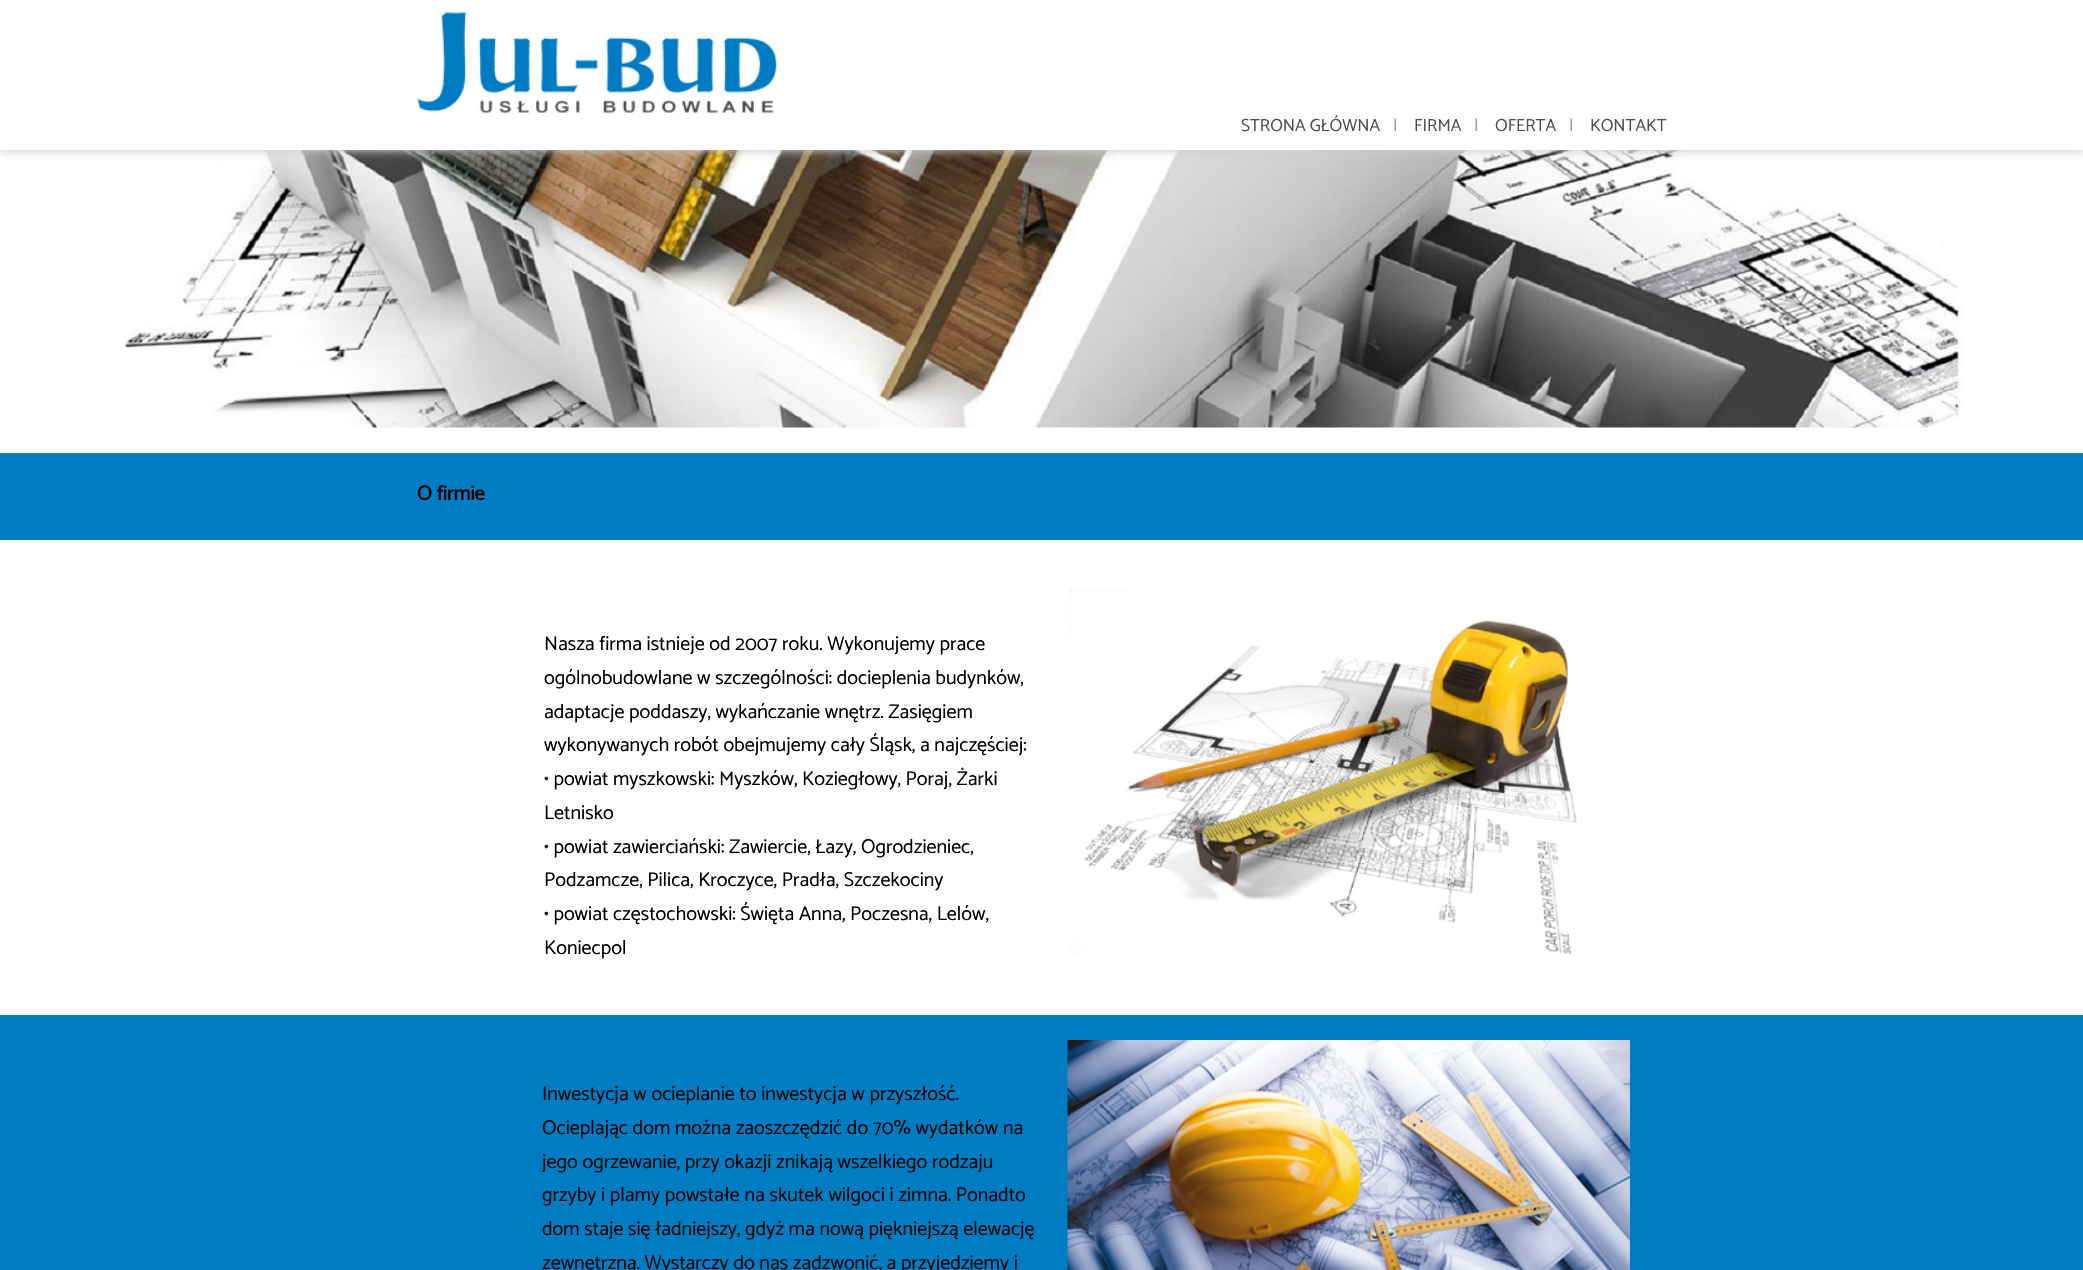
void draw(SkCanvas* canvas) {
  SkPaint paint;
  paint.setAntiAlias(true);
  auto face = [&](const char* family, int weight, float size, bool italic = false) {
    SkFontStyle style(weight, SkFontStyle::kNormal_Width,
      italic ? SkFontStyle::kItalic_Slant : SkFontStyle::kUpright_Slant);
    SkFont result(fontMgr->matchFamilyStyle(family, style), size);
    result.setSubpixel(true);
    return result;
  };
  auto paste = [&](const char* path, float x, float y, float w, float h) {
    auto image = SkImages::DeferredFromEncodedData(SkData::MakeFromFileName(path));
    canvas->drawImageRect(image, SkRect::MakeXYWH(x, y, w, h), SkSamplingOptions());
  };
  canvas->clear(0xffffffff);
  paste("img/2.png", 122, 150, 1841, 278);
  paint.setColor(0xffcccccc);
  paint.setMaskFilter(SkMaskFilter::MakeBlur(kNormal_SkBlurStyle, 4.5f));
  canvas->drawRect(SkRect::MakeXYWH(-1, -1, 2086, 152), paint);
  paint.setMaskFilter(nullptr);
  paint.setColor(0xffffffff);
  canvas->drawRect(SkRect::MakeXYWH(0, 0, 2083, 150), paint);
  paste("img/1.png", 417, 12, 360, 101);
  paint.setColor(0xff007cc2);
  canvas->drawRect(SkRect::MakeXYWH(0, 453, 2083, 87), paint);
  paste("img/3.png", 1069, 590, 508, 364);
  canvas->drawRect(SkRect::MakeXYWH(0, 1015, 2083, 255), paint);
  paste("img/4.png", 1067, 1040, 563, 230);
  auto f0 = face("Catamaran", 100, 17.5f);
  paint.setColor(0xff4d4d4d);
  canvas->drawString("STRONA GŁÓWNA", 1241, 131, f0, paint);
  paint.setColor(0xff979797);
  canvas->drawString("|", 1393, 131, f0, paint);
  paint.setColor(0xff4d4d4d);
  canvas->drawString("FIRMA", 1414, 131, f0, paint);
  paint.setColor(0xff979797);
  canvas->drawString("|", 1474, 131, f0, paint);
  paint.setColor(0xff4d4d4d);
  canvas->drawString("OFERTA", 1495, 131, f0, paint);
  paint.setColor(0xff979797);
  canvas->drawString("|", 1569, 131, f0, paint);
  paint.setColor(0xff4d4d4d);
  canvas->drawString("KONTAKT", 1590, 131, f0, paint);
  auto f1 = face("Catamaran", 700, 20.5f);
  paint.setColor(0xff000000);
  canvas->drawString("O firmie", 417, 500, f1, paint);
  auto f2 = face("Catamaran", 100, 20);
  {
    const struct { const char* s; float x, y; } items[] = {
      {"Nasza firma istnieje od 2007 roku. Wykonujemy prace", 544, 650},
      {"ogólnobudowlane w szczególności: docieplenia budynków,", 544, 684},
      {"adaptacje poddaszy, wykańczanie wnętrz. Zasięgiem", 544, 718},
      {"wykonywanych robót obejmujemy cały Śląsk, a najczęściej:", 544, 751},
      {"• powiat myszkowski: Myszków, Koziegłowy, Poraj, Żarki", 544, 785},
      {"Letnisko", 544, 819},
      {"• powiat zawierciański: Zawiercie, Łazy, Ogrodzieniec,", 544, 853},
      {"Podzamcze, Pilica, Kroczyce, Pradła, Szczekociny", 544, 886},
      {"• powiat częstochowski: Święta Anna, Poczesna, Lelów,", 544, 920},
      {"Koniecpol", 544, 954},
      {"Inwestycja w ocieplanie to inwestycja w przyszłość.", 542, 1100},
      {"Ocieplając dom można zaoszczędzić do 70% wydatków na", 542, 1134},
      {"jego ogrzewanie, przy okazji znikają wszelkiego rodzaju", 542, 1168},
      {"grzyby i plamy powstałe na skutek wilgoci i zimna. Ponadto", 542, 1201},
      {"dom staje się ładniejszy, gdyż ma nową piękniejszą elewację", 542, 1235},
      {"zewnętrzną. Wystarczy do nas zadzwonić, a przyjedziemy i", 542, 1269},
    };
    for (auto [s, x, y] : items) {
      canvas->drawString(s, x, y, f2, paint);
    }
  }
}
